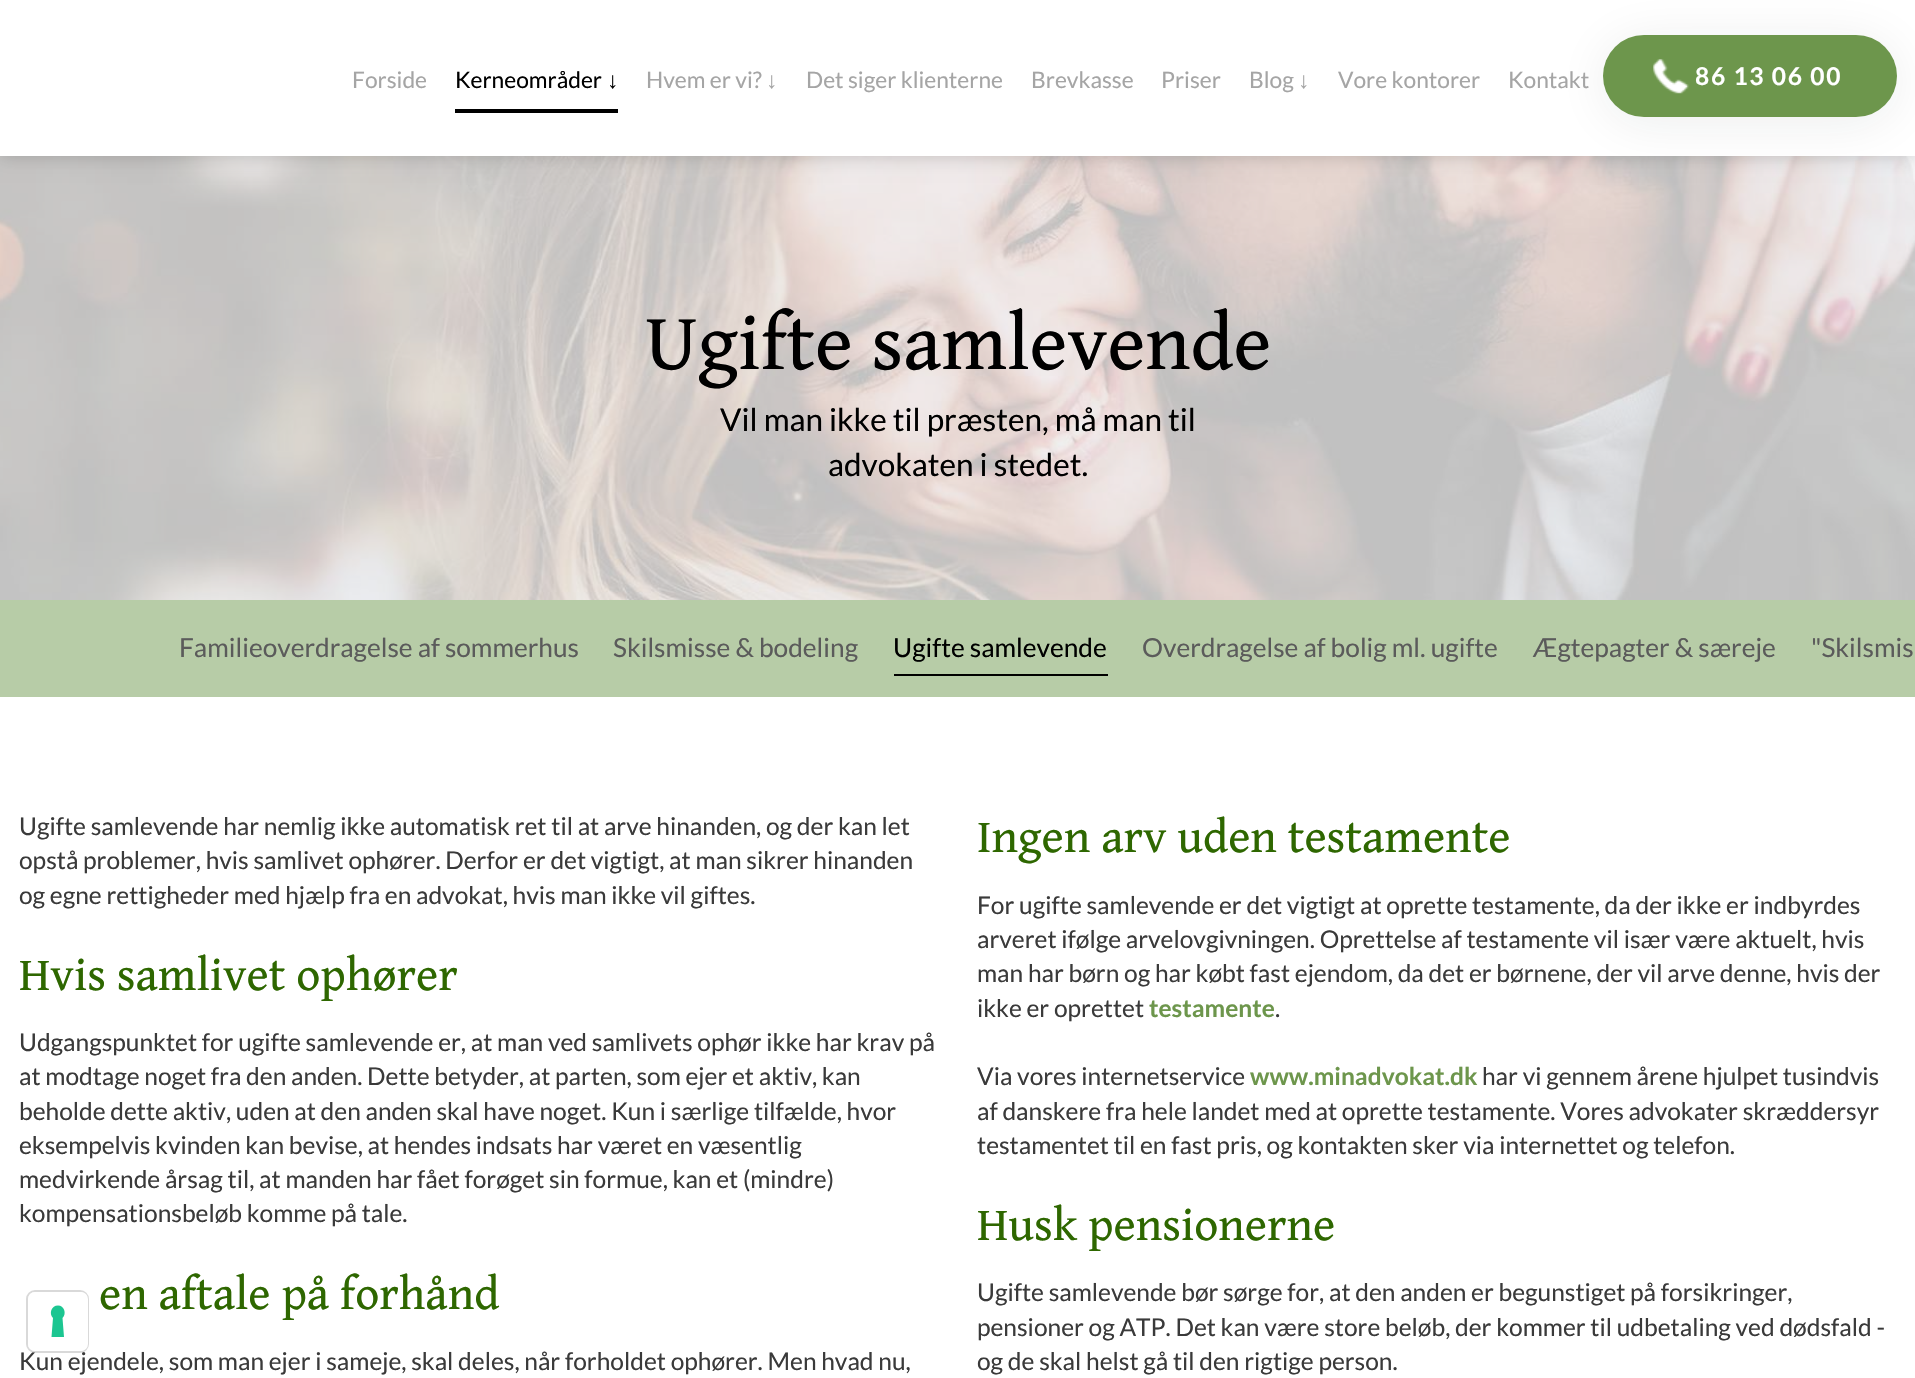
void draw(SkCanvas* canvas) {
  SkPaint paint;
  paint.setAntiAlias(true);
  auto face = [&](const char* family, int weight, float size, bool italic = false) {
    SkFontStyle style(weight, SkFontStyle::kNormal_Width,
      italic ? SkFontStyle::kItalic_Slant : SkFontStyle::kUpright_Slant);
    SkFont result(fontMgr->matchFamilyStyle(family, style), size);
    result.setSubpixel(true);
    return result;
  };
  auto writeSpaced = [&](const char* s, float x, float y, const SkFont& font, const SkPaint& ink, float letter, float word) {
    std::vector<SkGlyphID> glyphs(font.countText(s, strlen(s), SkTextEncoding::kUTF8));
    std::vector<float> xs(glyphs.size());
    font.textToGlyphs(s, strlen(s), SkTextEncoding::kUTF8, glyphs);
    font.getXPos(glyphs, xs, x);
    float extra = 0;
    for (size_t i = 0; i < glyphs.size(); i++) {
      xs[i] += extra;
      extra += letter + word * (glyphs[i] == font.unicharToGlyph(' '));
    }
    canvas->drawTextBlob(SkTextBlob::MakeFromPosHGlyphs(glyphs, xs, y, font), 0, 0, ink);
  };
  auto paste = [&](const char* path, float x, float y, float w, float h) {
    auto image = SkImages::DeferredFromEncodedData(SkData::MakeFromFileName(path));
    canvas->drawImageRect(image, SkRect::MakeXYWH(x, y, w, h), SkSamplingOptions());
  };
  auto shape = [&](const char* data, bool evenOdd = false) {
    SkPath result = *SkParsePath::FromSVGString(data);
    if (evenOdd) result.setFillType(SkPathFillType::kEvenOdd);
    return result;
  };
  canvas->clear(0xffffffff);
  paste("img/2.png", 0, 156, 1915, 444);
  paint.setColor(0x30000000);
  paint.setMaskFilter(SkMaskFilter::MakeBlur(kNormal_SkBlurStyle, 9));
  canvas->drawRect(SkRect::MakeXYWH(0, 0, 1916, 156), paint);
  paint.setMaskFilter(nullptr);
  paint.setColor(0xffffffff);
  canvas->drawRect(SkRect::MakeXYWH(0, 0, 1915, 156), paint);
  paint.setColor(0xff000000);
  canvas->drawRect(SkRect::MakeXYWH(455, 109, 163, 4), paint);
  paint.setColor(0x141a2228);
  paint.setMaskFilter(SkMaskFilter::MakeBlur(kNormal_SkBlurStyle, 26));
  canvas->drawRoundRect(SkRect::MakeXYWH(1603, 40, 294, 83), 41.5f, 41.5f, paint);
  paint.setMaskFilter(nullptr);
  paint.setColor(0xff6d964c);
  canvas->drawRoundRect(SkRect::MakeXYWH(1603, 35, 294, 82), 41, 41, paint);
  paste("img/1.png", 1653, 59, 36, 35);
  paint.setColor(0xffb7cca7);
  canvas->drawRect(SkRect::MakeXYWH(0, 600, 1915, 97), paint);
  paint.setColor(0xff000000);
  canvas->drawRect(SkRect::MakeXYWH(894, 674, 214, 2), paint);
  auto f0 = face("Lato", 400, 22.75f);
  paint.setColor(0xffa5a5a5);
  canvas->drawString("Forside", 352, 88, f0, paint);
  paint.setColor(0xff000000);
  canvas->drawString("Kerneområder", 455, 88, f0, paint);
  auto f1 = face("Liberation Sans", 400, 22.75f);
  canvas->drawString("↓", 607, 88, f1, paint);
  paint.setColor(0xffa5a5a5);
  canvas->drawString("Hvem er vi?", 646, 88, f0, paint);
  canvas->drawString("↓", 766, 88, f1, paint);
  {
    const struct { const char* s; float x, y; } items[] = {
      {"Det siger klienterne", 806, 88},
      {"Brevkasse", 1031, 88},
      {"Priser", 1161, 88},
      {"Blog", 1249, 88},
    };
    for (auto [s, x, y] : items) {
      canvas->drawString(s, x, y, f0, paint);
    }
  }
  canvas->drawString("↓", 1298, 88, f1, paint);
  canvas->drawString("Vore kontorer", 1338, 88, f0, paint);
  canvas->drawString("Kontakt", 1508, 88, f0, paint);
  auto f2 = face("Lato", 700, 24.5f);
  paint.setColor(0xffffffff);
  writeSpaced("86 13 06 00", 1695, 85, f2, paint, 1.75f, 0);
  auto f3 = face("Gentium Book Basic", 400, 80.5f);
  paint.setColor(0xff000000);
  canvas->drawString("Ugifte samlevende", 645, 369, f3, paint);
  auto f4 = face("Lato", 400, 31.5f);
  canvas->drawString("Vil man ikke til præsten, må man til", 720, 431, f4, paint);
  canvas->drawString("advokaten i stedet.", 828, 476, f4, paint);
  auto f5 = face("Lato", 400, 26.25f);
  paint.setColor(0xff5b5b5b);
  canvas->drawString("Familieoverdragelse af sommerhus", 179, 657, f5, paint);
  canvas->drawString("Skilsmisse & bodeling", 613, 657, f5, paint);
  paint.setColor(0xff000000);
  canvas->drawString("Ugifte samlevende", 893, 657, f5, paint);
  paint.setColor(0xff5b5b5b);
  {
    const struct { const char* s; float x, y; } items[] = {
      {"Overdragelse af bolig ml. ugifte", 1142, 657},
      {"Ægtepagter & særeje", 1533, 657},
      {"\"Skilsmis", 1811, 657},
    };
    for (auto [s, x, y] : items) {
      canvas->drawString(s, x, y, f5, paint);
    }
  }
  auto f6 = face("Lato", 400, 24.5f);
  paint.setColor(0xff3a3a3a);
  {
    const struct { const char* s; float x, y; } items[] = {
      {"Ugifte samlevende har nemlig ikke automatisk ret til at arve hinanden, og der kan let", 19, 835},
      {"opstå problemer, hvis samlivet ophører. Derfor er det vigtigt, at man sikrer hinanden", 19, 869},
      {"og egne rettigheder med hjælp fra en advokat, hvis man ikke vil giftes.", 19, 904},
    };
    for (auto [s, x, y] : items) {
      canvas->drawString(s, x, y, f6, paint);
    }
  }
  auto f7 = face("Gentium Book Basic", 400, 47.25f);
  paint.setColor(0xff2e6700);
  canvas->drawString("Hvis samlivet ophører", 19, 990, f7, paint);
  paint.setColor(0xff3a3a3a);
  {
    const struct { const char* s; float x, y; } items[] = {
      {"Udgangspunktet for ugifte samlevende er, at man ved samlivets ophør ikke har krav på", 19, 1051},
      {"at modtage noget fra den anden. Dette betyder, at parten, som ejer et aktiv, kan", 19, 1085},
      {"beholde dette aktiv, uden at den anden skal have noget. Kun i særlige tilfælde, hvor", 19, 1120},
      {"eksempelvis kvinden kan bevise, at hendes indsats har været en væsentlig", 19, 1154},
      {"medvirkende årsag til, at manden har fået forøget sin formue, kan et (mindre)", 19, 1188},
      {"kompensationsbeløb komme på tale.", 19, 1222},
    };
    for (auto [s, x, y] : items) {
      canvas->drawString(s, x, y, f6, paint);
    }
  }
  paint.setColor(0xff2e6700);
  canvas->drawString("en aftale på forhånd", 99, 1309, f7, paint);
  paint.setColor(0xff3a3a3a);
  canvas->drawString("Kun ejendele, som man ejer i sameje, skal deles, når forholdet ophører. Men hvad nu,", 19, 1370, f6, paint);
  paint.setColor(0xff2e6700);
  canvas->drawString("Ingen arv uden testamente", 977, 852, f7, paint);
  paint.setColor(0xff3a3a3a);
  {
    const struct { const char* s; float x, y; } items[] = {
      {"For ugifte samlevende er det vigtigt at oprette testamente, da der ikke er indbyrdes", 977, 914},
      {"arveret ifølge arvelovgivningen. Oprettelse af testamente vil især være aktuelt, hvis", 977, 948},
      {"man har børn og har købt fast ejendom, da det er børnene, der vil arve denne, hvis der", 977, 982},
      {"ikke er oprettet", 977, 1017},
    };
    for (auto [s, x, y] : items) {
      canvas->drawString(s, x, y, f6, paint);
    }
  }
  paint.setColor(0xff6d964c);
  canvas->drawString("testamente", 1149, 1017, f2, paint);
  paint.setColor(0xff3a3a3a);
  canvas->drawString(".", 1275, 1017, f6, paint);
  canvas->drawString("Via vores internetservice", 977, 1085, f6, paint);
  paint.setColor(0xff6d964c);
  canvas->drawString("www.minadvokat.dk", 1250, 1085, f2, paint);
  paint.setColor(0xff3a3a3a);
  {
    const struct { const char* s; float x, y; } items[] = {
      {"har vi gennem årene hjulpet tusindvis", 1482, 1085},
      {"af danskere fra hele landet med at oprette testamente. Vores advokater skræddersyr", 977, 1120},
      {"testamentet til en fast pris, og kontakten sker via internettet og telefon.", 977, 1154},
    };
    for (auto [s, x, y] : items) {
      canvas->drawString(s, x, y, f6, paint);
    }
  }
  paint.setColor(0xff2e6700);
  canvas->drawString("Husk pensionerne", 977, 1240, f7, paint);
  paint.setColor(0xff3a3a3a);
  {
    const struct { const char* s; float x, y; } items[] = {
      {"Ugifte samlevende bør sørge for, at den anden er begunstiget på forsikringer,", 977, 1301},
      {"pensioner og ATP. Det kan være store beløb, der kommer til udbetaling ved dødsfald -", 977, 1336},
      {"og de skal helst gå til den rigtige person.", 977, 1370},
    };
    for (auto [s, x, y] : items) {
      canvas->drawString(s, x, y, f6, paint);
    }
  }
  paint.setStroke(true);
  paint.setStrokeWidth(2);
  paint.setColor(0x26000000);
  canvas->drawRoundRect(SkRect::MakeXYWH(27, 1291, 61, 61), 8, 8, paint);
  paint.setStroke(false);
  paint.setColor(0xffffffff);
  canvas->drawRoundRect(SkRect::MakeXYWH(28, 1292, 60, 59), 7, 7, paint);
  paint.setColor(0xff1cc691);
  canvas->drawPath(shape("M58 1305.5C64 1305.5 67 1313.5 62.5 1318L64 1337H51.5L53 1318C48.5 1313.5 51.5 1305.5 58 1305.5Z", true), paint);
}
